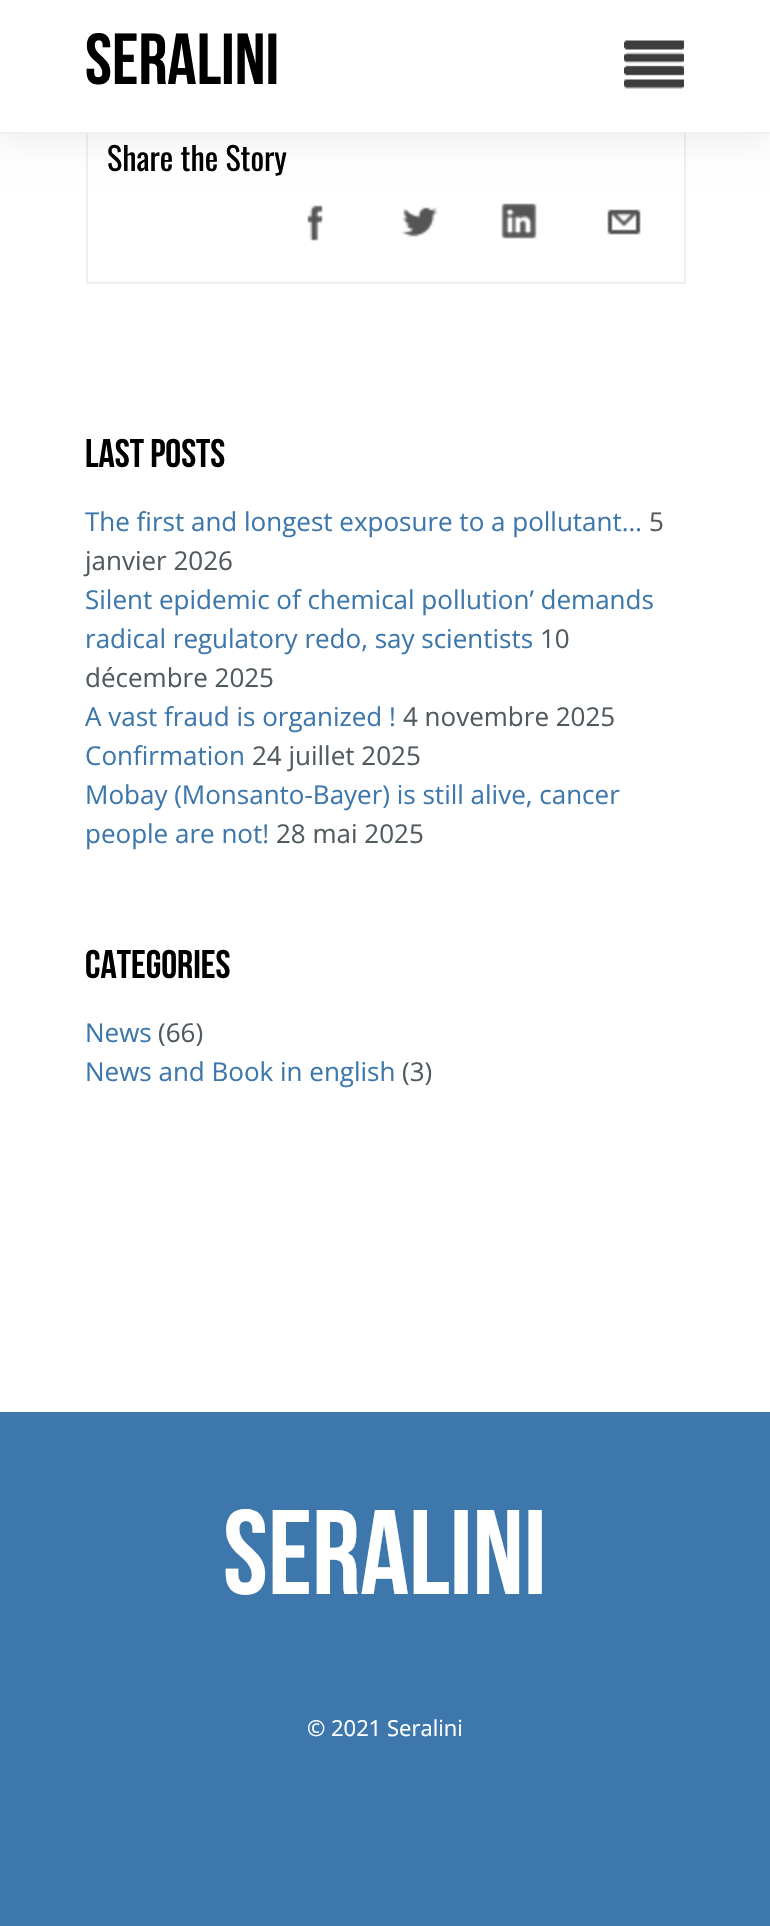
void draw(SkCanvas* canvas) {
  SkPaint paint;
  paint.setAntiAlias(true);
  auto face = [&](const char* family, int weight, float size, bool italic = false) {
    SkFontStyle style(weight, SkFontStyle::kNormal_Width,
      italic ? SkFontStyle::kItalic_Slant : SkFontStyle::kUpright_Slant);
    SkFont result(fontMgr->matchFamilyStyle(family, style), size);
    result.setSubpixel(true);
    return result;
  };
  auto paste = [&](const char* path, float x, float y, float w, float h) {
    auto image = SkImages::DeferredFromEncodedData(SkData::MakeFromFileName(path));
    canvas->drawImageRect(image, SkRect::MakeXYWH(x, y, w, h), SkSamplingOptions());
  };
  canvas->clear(0xffffffff);
  paint.setStroke(true);
  paint.setStrokeWidth(2);
  paint.setColor(0xffefefef);
  canvas->drawRect(SkRect::MakeXYWH(87, 107, 598, 176), paint);
  paint.setStroke(false);
  paint.setColor(0x12000000);
  paint.setMaskFilter(SkMaskFilter::MakeBlur(kNormal_SkBlurStyle, 15));
  canvas->drawRect(SkRect::MakeXYWH(0, 8, 770, 134), paint);
  paint.setMaskFilter(nullptr);
  paint.setColor(0xffffffff);
  canvas->drawRect(SkRect::MakeXYWH(0, 0, 770, 132), paint);
  paint.setColor(0xfff0f0f0);
  canvas->drawRect(SkRect::MakeXYWH(0, 132, 770, 2), paint);
  paste("img/1.png", 624, 40, 60, 49);
  paste("img/2.png", 307, 205, 16, 36);
  paste("img/3.png", 401, 207, 37, 30);
  paste("img/4.png", 501, 203, 36, 36);
  paste("img/5.png", 607, 209, 34, 26);
  paint.setColor(0xff3d77ab);
  canvas->drawRect(SkRect::MakeXYWH(0, 1412, 770, 514), paint);
  auto f0 = face("Bebas Neue", 400, 72);
  paint.setColor(0xff000000);
  canvas->drawString("SERALINI", 85, 84, f0, paint);
  auto f1 = face("Oswald", 400, 32);
  canvas->drawString("Share the Story", 107, 171, f1, paint);
  auto f2 = face("Bebas Neue", 400, 40);
  canvas->drawString("Last posts", 85, 467, f2, paint);
  auto f3 = face("Open Sans", 400, 26);
  paint.setColor(0xff3d77ab);
  canvas->drawString("The first and longest exposure to a pollutant…", 85, 531, f3, paint);
  paint.setColor(0xff515a5f);
  canvas->drawString("5", 649, 531, f3, paint);
  canvas->drawString("janvier 2026", 85, 570, f3, paint);
  paint.setColor(0xff3d77ab);
  canvas->drawString("Silent epidemic of chemical pollution’ demands", 85, 609, f3, paint);
  canvas->drawString("radical regulatory redo, say scientists", 85, 648, f3, paint);
  paint.setColor(0xff515a5f);
  canvas->drawString("10", 540, 648, f3, paint);
  canvas->drawString("décembre 2025", 85, 687, f3, paint);
  paint.setColor(0xff3d77ab);
  canvas->drawString("A vast fraud is organized !", 85, 726, f3, paint);
  paint.setColor(0xff515a5f);
  canvas->drawString("4 novembre 2025", 403, 726, f3, paint);
  paint.setColor(0xff3d77ab);
  canvas->drawString("Confirmation", 85, 765, f3, paint);
  paint.setColor(0xff515a5f);
  canvas->drawString("24 juillet 2025", 252, 765, f3, paint);
  paint.setColor(0xff3d77ab);
  canvas->drawString("Mobay (Monsanto-Bayer) is still alive, cancer", 85, 804, f3, paint);
  canvas->drawString("people are not!", 85, 843, f3, paint);
  paint.setColor(0xff515a5f);
  canvas->drawString("28 mai 2025", 276, 843, f3, paint);
  paint.setColor(0xff000000);
  canvas->drawString("Categories", 85, 978, f2, paint);
  paint.setColor(0xff3d77ab);
  canvas->drawString("News", 85, 1042, f3, paint);
  paint.setColor(0xff515a5f);
  canvas->drawString("(66)", 158, 1042, f3, paint);
  paint.setColor(0xff3d77ab);
  canvas->drawString("News and Book in english", 85, 1081, f3, paint);
  paint.setColor(0xff515a5f);
  canvas->drawString("(3)", 402, 1081, f3, paint);
  auto f4 = face("Bebas Neue", 400, 120);
  paint.setColor(0xffffffff);
  canvas->drawString("SERALINI", 223, 1594, f4, paint);
  auto f5 = face("Open Sans", 400, 22);
  canvas->drawString("© 2021 Seralini", 307, 1736, f5, paint);
}
